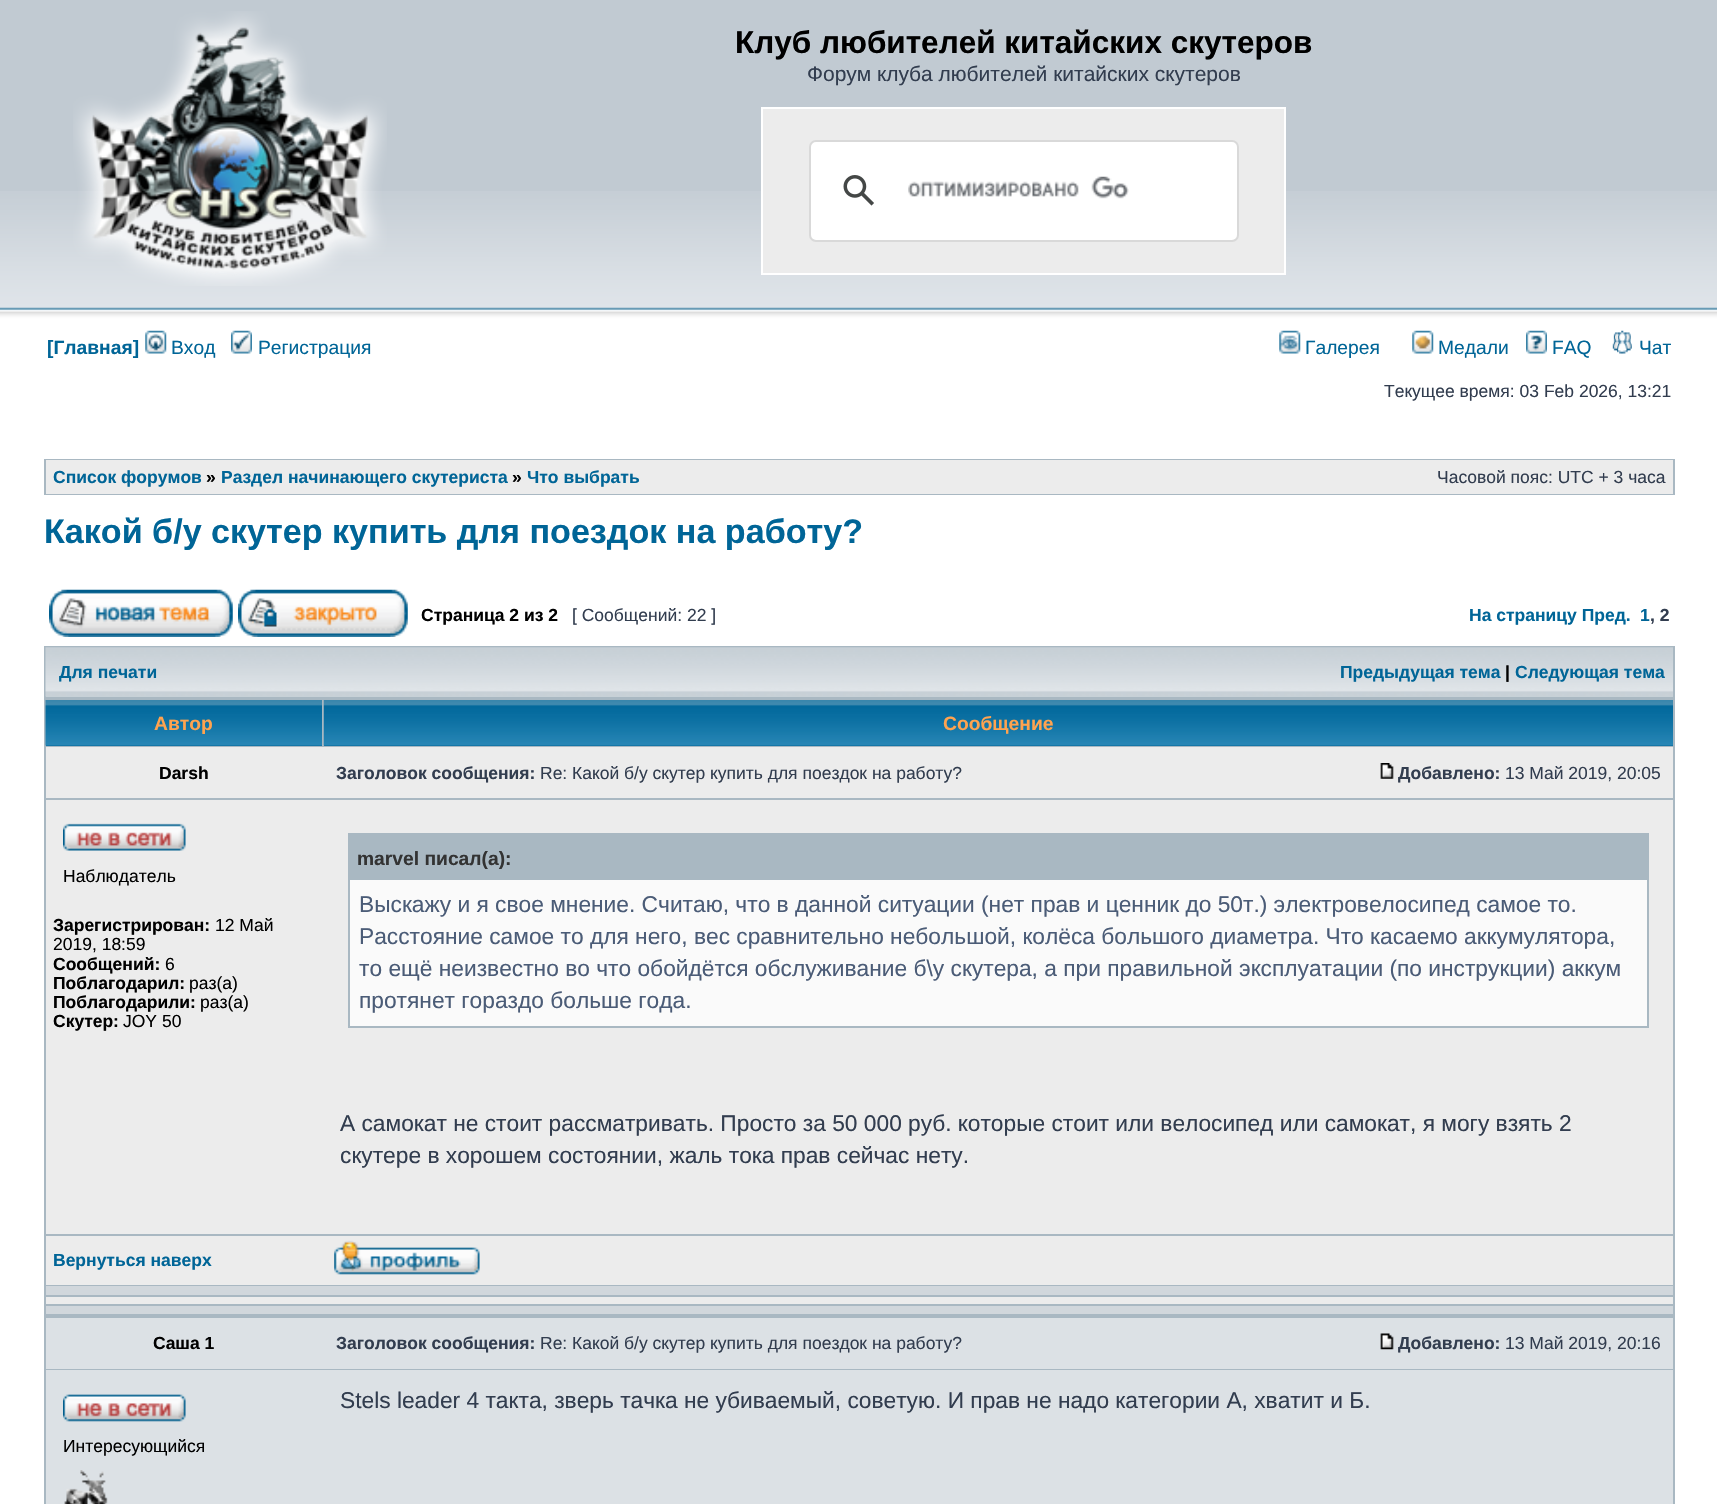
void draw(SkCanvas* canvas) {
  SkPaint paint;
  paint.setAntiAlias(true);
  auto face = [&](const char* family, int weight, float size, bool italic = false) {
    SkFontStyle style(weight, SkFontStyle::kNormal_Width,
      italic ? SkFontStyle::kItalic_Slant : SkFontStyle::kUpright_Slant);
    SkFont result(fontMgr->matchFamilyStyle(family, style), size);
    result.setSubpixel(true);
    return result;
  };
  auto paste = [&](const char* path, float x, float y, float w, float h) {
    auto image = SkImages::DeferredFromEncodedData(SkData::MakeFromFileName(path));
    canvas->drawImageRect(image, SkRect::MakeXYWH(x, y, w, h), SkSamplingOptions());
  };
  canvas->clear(0xffffffff);
  paint.setColor(0xffc1cad2);
  canvas->drawRect(SkRect::MakeXYWH(0, 0, 1717, 191), paint);
  paste("img/1.png", 0, 191, 1717, 136);
  paste("img/2.png", 73, 11, 314, 275);
  paint.setColor(0xffececec);
  canvas->drawRect(SkRect::MakeXYWH(762, 108, 523, 166), paint);
  paint.setStroke(true);
  paint.setStrokeWidth(2);
  paint.setColor(0xffffffff);
  canvas->drawRect(SkRect::MakeXYWH(762, 108, 523, 166), paint);
  paint.setStroke(false);
  canvas->drawRoundRect(SkRect::MakeXYWH(810, 141, 428, 100), 6, 6, paint);
  paint.setStroke(true);
  paint.setColor(0xffd9d9d9);
  canvas->drawRoundRect(SkRect::MakeXYWH(810, 141, 428, 100), 6, 6, paint);
  paste("img/3.png", 843, 175, 31, 31);
  paste("img/4.png", 908, 176, 221, 23);
  paste("img/5.png", 145, 330, 22, 24);
  paste("img/6.png", 231, 330, 21, 24);
  paste("img/7.png", 1279, 330, 22, 24);
  paste("img/8.png", 1412, 330, 22, 24);
  paste("img/9.png", 1526, 330, 21, 24);
  paste("img/10.png", 1612, 330, 20, 24);
  paint.setStroke(false);
  paint.setColor(0xffa9b8c2);
  canvas->drawRect(SkRect::MakeXYWH(44, 459, 1631, 36), paint);
  paint.setColor(0xffececec);
  canvas->drawRect(SkRect::MakeXYWH(46, 460, 1627, 34), paint);
  paste("img/11.png", 49, 589, 184, 48);
  paste("img/12.png", 238, 589, 170, 48);
  paint.setColor(0xffa9b8c2);
  canvas->drawRect(SkRect::MakeXYWH(44, 646, 1631, 858), paint);
  paint.setColor(0xffc7d0d7);
  canvas->drawRect(SkRect::MakeXYWH(46, 696, 1627, 1), paint);
  paste("img/13.png", 45, 647, 1628, 50);
  paint.setColor(0xff006699);
  canvas->drawRect(SkRect::MakeXYWH(46, 745, 276, 1), paint);
  paste("img/14.png", 45, 700, 277, 46);
  canvas->drawRect(SkRect::MakeXYWH(324, 745, 1349, 1), paint);
  paste("img/15.png", 323, 700, 1350, 46);
  paint.setColor(0xffececec);
  canvas->drawRect(SkRect::MakeXYWH(46, 747, 1627, 51), paint);
  paste("img/16.png", 1380, 763, 14, 16);
  canvas->drawRect(SkRect::MakeXYWH(46, 800, 1627, 434), paint);
  paste("img/17.png", 63, 823, 123, 28);
  {
    const struct { float x, y, w, h; SkColor color; } items[] = {
      {350, 835, 1297, 45, 0xffa9b8c2},
      {348, 833, 1301, 2, 0xffa9b8c2},
      {1647, 833, 2, 194, 0xffa9b8c2},
      {348, 833, 2, 47, 0xffa9b8c2},
      {350, 880, 1297, 146, 0xfffafafa},
      {348, 1026, 1301, 2, 0xffa9b8c2},
      {348, 880, 2, 147, 0xffa9b8c2},
      {46, 1236, 1627, 49, 0xffececec},
    };
    for (auto [x, y, w, h, color] : items) {
      paint.setColor(color);
      canvas->drawRect(SkRect::MakeXYWH(x, y, w, h), paint);
    }
  }
  paste("img/18.png", 334, 1240, 146, 35);
  {
    const struct { float x, y, w, h; SkColor color; } items[] = {
      {46, 1286, 1627, 9, 0xffd1d7dc},
      {46, 1297, 1627, 7, 0xffececec},
      {46, 1306, 1627, 8, 0xffd1d7dc},
      {46, 1318, 1627, 51, 0xffdce1e5},
    };
    for (auto [x, y, w, h, color] : items) {
      paint.setColor(color);
      canvas->drawRect(SkRect::MakeXYWH(x, y, w, h), paint);
    }
  }
  paste("img/19.png", 1380, 1333, 14, 17);
  canvas->drawRect(SkRect::MakeXYWH(46, 1370, 1627, 134), paint);
  paste("img/20.png", 63, 1394, 123, 28);
  paste("img/21.png", 64, 1470, 44, 34);
  auto f0 = face("Liberation Sans", 700, 31.5f);
  paint.setColor(0xff000000);
  canvas->drawString("Клуб любителей китайских скутеров", 735, 53, f0, paint);
  auto f1 = face("Liberation Sans", 400, 21);
  paint.setColor(0xff323d4f);
  canvas->drawString("Форум клуба любителей китайских скутеров", 807, 81, f1, paint);
  auto f2 = face("Liberation Sans", 700, 19.25f);
  paint.setColor(0xff006597);
  canvas->drawString("[Главная]", 47, 354, f2, paint);
  auto f3 = face("Liberation Sans", 400, 19.25f);
  {
    const struct { const char* s; float x, y; } items[] = {
      {"Вход", 171, 354},
      {"Регистрация", 258, 354},
      {"Галерея", 1305, 354},
      {"Медали", 1438, 354},
      {"FAQ", 1552, 354},
      {"Чат", 1639, 354},
    };
    for (auto [s, x, y] : items) {
      canvas->drawString(s, x, y, f3, paint);
    }
  }
  auto f4 = face("Liberation Sans", 400, 17.5f);
  paint.setColor(0xff323d4f);
  canvas->drawString("Текущее время: 03 Feb 2026, 13:21", 1384, 397, f4, paint);
  auto f5 = face("Liberation Sans", 700, 17.5f);
  paint.setColor(0xff006597);
  canvas->drawString("Список форумов", 53, 483, f5, paint);
  paint.setColor(0xff000000);
  canvas->drawString("»", 206, 483, f5, paint);
  paint.setColor(0xff006597);
  canvas->drawString("Раздел начинающего скутериста", 221, 483, f5, paint);
  paint.setColor(0xff000000);
  canvas->drawString("»", 512, 483, f5, paint);
  paint.setColor(0xff006597);
  canvas->drawString("Что выбрать", 527, 483, f5, paint);
  paint.setColor(0xff323d4f);
  canvas->drawString("Часовой пояс: UTC + 3 часа", 1437, 483, f4, paint);
  auto f6 = face("Liberation Sans", 700, 34.1f);
  paint.setColor(0xff006597);
  canvas->drawString("Какой б/у скутер купить для поездок на работу?", 44, 543, f6, paint);
  paint.setColor(0xff000000);
  canvas->drawString("Страница 2 из 2", 421, 621, f5, paint);
  paint.setColor(0xff323d4f);
  canvas->drawString("[ Сообщений: 22 ]", 572, 621, f4, paint);
  paint.setColor(0xff006597);
  canvas->drawString("На страницу Пред.", 1469, 621, f5, paint);
  canvas->drawString("1", 1640, 621, f5, paint);
  paint.setColor(0xff323d4f);
  canvas->drawString(", 2", 1650, 621, f5, paint);
  paint.setColor(0xff006597);
  canvas->drawString("Для печати", 59, 678, f5, paint);
  canvas->drawString("Предыдущая тема", 1340, 678, f5, paint);
  paint.setColor(0xff000000);
  canvas->drawString("|", 1505, 678, f5, paint);
  paint.setColor(0xff006597);
  canvas->drawString("Следующая тема", 1515, 678, f5, paint);
  paint.setColor(0xffffa34f);
  canvas->drawString("Автор", 154, 730, f2, paint);
  canvas->drawString("Сообщение", 943, 730, f2, paint);
  paint.setColor(0xff000000);
  canvas->drawString("Darsh", 159, 779, f5, paint);
  paint.setColor(0xff323d4f);
  canvas->drawString("Заголовок сообщения:", 336, 779, f5, paint);
  canvas->drawString("Re: Какой б/у скутер купить для поездок на работу?", 540, 779, f4, paint);
  canvas->drawString("Добавлено:", 1398, 779, f5, paint);
  canvas->drawString("13 Май 2019, 20:05", 1505, 779, f4, paint);
  paint.setColor(0xff000000);
  canvas->drawString("Наблюдатель", 63, 882, f4, paint);
  canvas->drawString("Зарегистрирован:", 53, 931, f5, paint);
  canvas->drawString("12 Май", 215, 931, f4, paint);
  canvas->drawString("2019, 18:59", 53, 950, f4, paint);
  canvas->drawString("Сообщений:", 53, 970, f5, paint);
  canvas->drawString("6", 165, 970, f4, paint);
  canvas->drawString("Поблагодарил:", 53, 989, f5, paint);
  canvas->drawString("раз(а)", 189, 989, f4, paint);
  canvas->drawString("Поблагодарили:", 53, 1008, f5, paint);
  canvas->drawString("раз(а)", 200, 1008, f4, paint);
  canvas->drawString("Скутер:", 53, 1027, f5, paint);
  canvas->drawString("JOY 50", 123, 1027, f4, paint);
  paint.setColor(0xff333333);
  canvas->drawString("marvel писал(а):", 357, 865, f2, paint);
  auto f7 = face("Liberation Sans", 400, 22.75f);
  paint.setColor(0xff4b5c77);
  {
    const struct { const char* s; float x, y; } items[] = {
      {"Выскажу и я свое мнение. Считаю, что в данной ситуации (нет прав и ценник до 50т.) электровелосипед самое то.", 359, 912},
      {"Расстояние самое то для него, вес сравнительно небольшой, колёса большого диаметра. Что касаемо аккумулятора,", 359, 944},
      {"то ещё неизвестно во что обойдётся обслуживание б\\у скутера, а при правильной эксплуатации (по инструкции) аккум", 359, 976},
      {"протянет гораздо больше года.", 359, 1008},
    };
    for (auto [s, x, y] : items) {
      canvas->drawString(s, x, y, f7, paint);
    }
  }
  paint.setColor(0xff323d4f);
  canvas->drawString("А самокат не стоит рассматривать. Просто за 50 000 руб. которые стоит или велосипед или самокат, я могу взять 2", 340, 1131, f7, paint);
  canvas->drawString("скутере в хорошем состоянии, жаль тока прав сейчас нету.", 340, 1163, f7, paint);
  paint.setColor(0xff006597);
  canvas->drawString("Вернуться наверх", 53, 1266, f5, paint);
  paint.setColor(0xff000000);
  canvas->drawString("Саша 1", 153, 1349, f5, paint);
  paint.setColor(0xff323d4f);
  canvas->drawString("Заголовок сообщения:", 336, 1349, f5, paint);
  canvas->drawString("Re: Какой б/у скутер купить для поездок на работу?", 540, 1349, f4, paint);
  canvas->drawString("Добавлено:", 1398, 1349, f5, paint);
  canvas->drawString("13 Май 2019, 20:16", 1505, 1349, f4, paint);
  canvas->drawString("Stels leader 4 такта, зверь тачка не убиваемый, советую. И прав не надо категории А, хватит и Б.", 340, 1408, f7, paint);
  paint.setColor(0xff000000);
  canvas->drawString("Интересующийся", 63, 1452, f4, paint);
}
